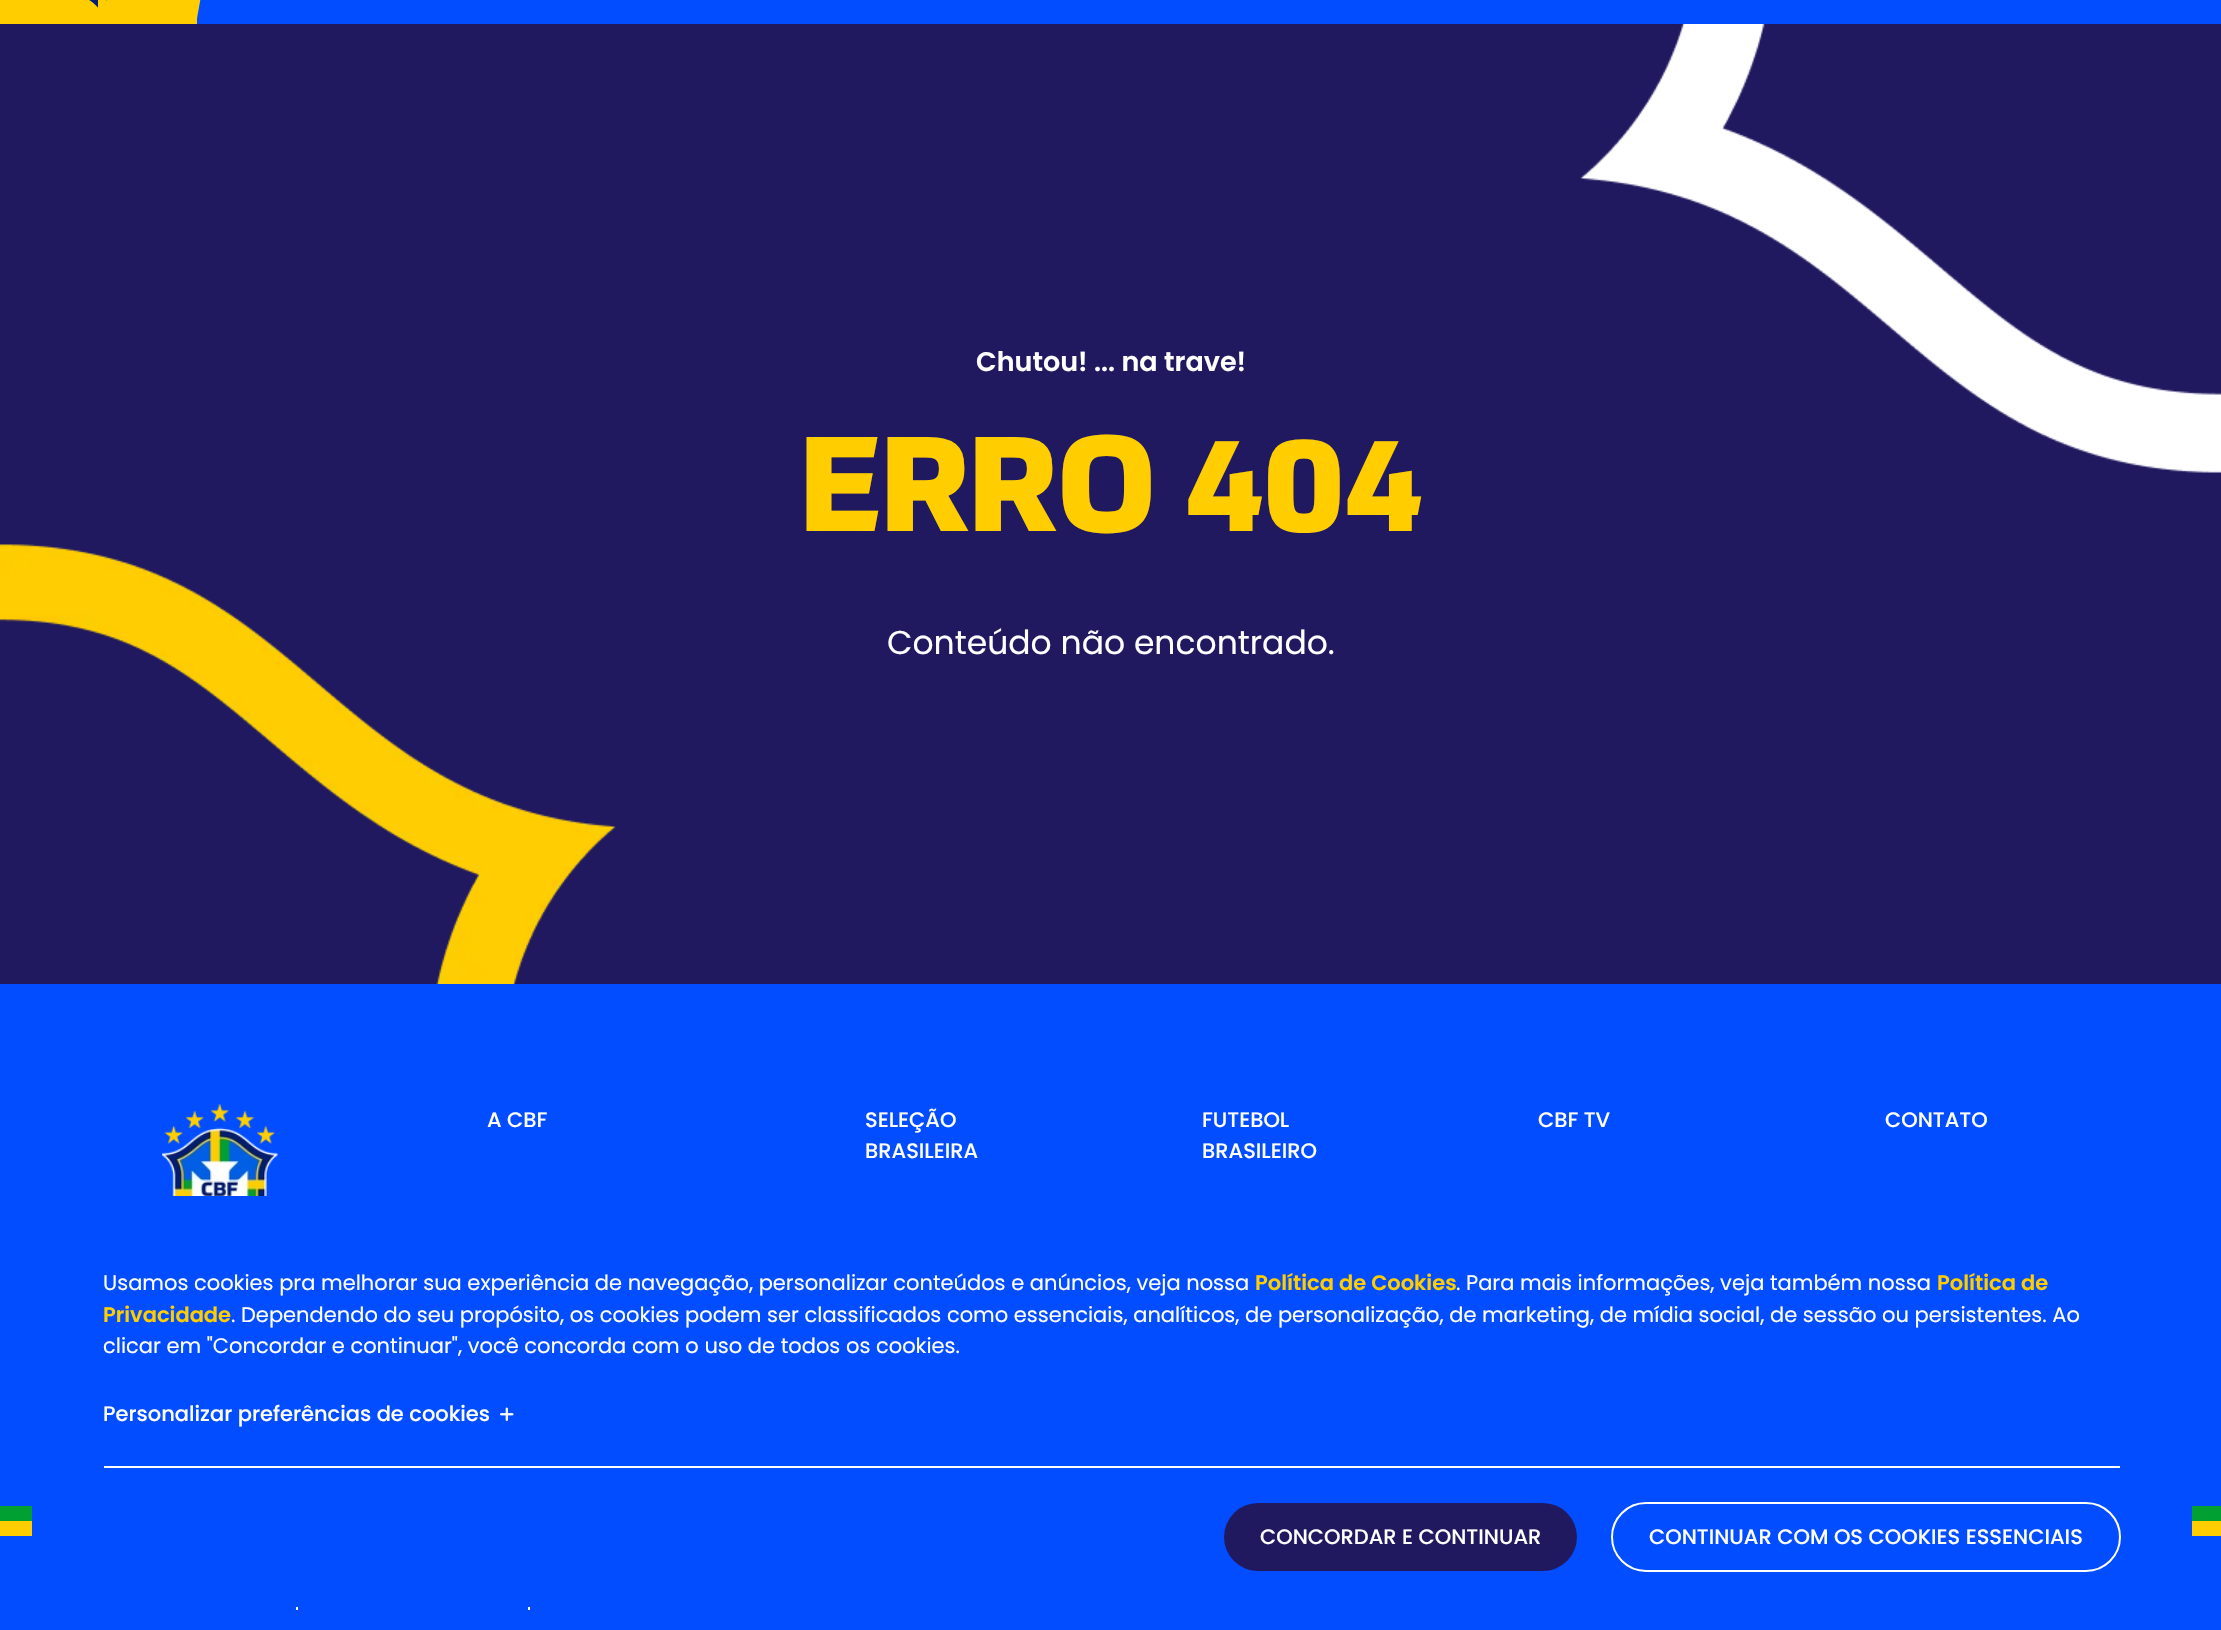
void draw(SkCanvas* canvas) {
  SkPaint paint;
  paint.setAntiAlias(true);
  auto face = [&](const char* family, int weight, float size, bool italic = false) {
    SkFontStyle style(weight, SkFontStyle::kNormal_Width,
      italic ? SkFontStyle::kItalic_Slant : SkFontStyle::kUpright_Slant);
    SkFont result(fontMgr->matchFamilyStyle(family, style), size);
    result.setSubpixel(true);
    return result;
  };
  auto paste = [&](const char* path, float x, float y, float w, float h) {
    auto image = SkImages::DeferredFromEncodedData(SkData::MakeFromFileName(path));
    canvas->drawImageRect(image, SkRect::MakeXYWH(x, y, w, h), SkSamplingOptions());
  };
  auto shape = [&](const char* data, bool evenOdd = false) {
    SkPath result = *SkParsePath::FromSVGString(data);
    if (evenOdd) result.setFillType(SkPathFillType::kEvenOdd);
    return result;
  };
  canvas->clear(0xff014dff);
  paint.setColor(0xffffcd00);
  canvas->drawRect(SkRect::MakeXYWH(0, 0, 197, 24), paint);
  paste("img/1.png", 89, 0, 18, 8);
  canvas->drawPath(shape("M196-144H226L196 24Z"), paint);
  paint.setColor(0xff20195f);
  canvas->drawRect(SkRect::MakeXYWH(0, 24, 2221, 960), paint);
  paste("img/2.png", 1580, 24, 641, 449);
  paste("img/3.png", 0, 544, 616, 440);
  paste("img/4.png", 162, 1104, 116, 92);
  {
    const struct { float x, y, w, h; SkColor color; } items[] = {
      {0, 1506, 2221, 15, 0xff00a032},
      {0, 1521, 2221, 15, 0xffffcd00},
      {296, 1607, 2, 3, 0xffffffff},
      {528, 1607, 2, 3, 0xffffffff},
    };
    for (auto [x, y, w, h, color] : items) {
      paint.setColor(color);
      canvas->drawRect(SkRect::MakeXYWH(x, y, w, h), paint);
    }
  }
  paint.setColor(0xff014dff);
  canvas->drawRoundRect(SkRect::MakeXYWH(32, 1196, 2160, 411), 36, 36, paint);
  paste("img/5.png", 500, 1407, 14, 14);
  paint.setColor(0xffffffff);
  canvas->drawRect(SkRect::MakeXYWH(104, 1466, 2016, 2), paint);
  paint.setColor(0xff20195f);
  canvas->drawRoundRect(SkRect::MakeXYWH(1224, 1503, 353, 68), 34, 34, paint);
  paint.setStroke(true);
  paint.setStrokeWidth(2);
  paint.setColor(0xffffffff);
  canvas->drawRoundRect(SkRect::MakeXYWH(1612, 1503, 508, 68), 34, 34, paint);
  auto f0 = face("Poppins", 600, 27);
  paint.setStroke(false);
  canvas->drawString("Chutou! ... na trave!", 976, 371, f0, paint);
  auto f1 = face("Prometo", 700, 132);
  paint.setColor(0xffffcd00);
  canvas->drawString("ERRO 404", 800, 531, f1, paint);
  auto f2 = face("Poppins", 400, 33);
  paint.setColor(0xffffffff);
  canvas->drawString("Conteúdo não encontrado.", 887, 654, f2, paint);
  auto f3 = face("Poppins", 500, 21);
  {
    const struct { const char* s; float x, y; } items[] = {
      {"A CBF", 487, 1127},
      {"SELEÇÃO", 865, 1127},
      {"BRASILEIRA", 865, 1158},
      {"FUTEBOL", 1202, 1127},
      {"BRASILEIRO", 1202, 1158},
      {"CBF TV", 1538, 1127},
      {"CONTATO", 1885, 1127},
    };
    for (auto [s, x, y] : items) {
      canvas->drawString(s, x, y, f3, paint);
    }
  }
  auto f4 = face("Poppins", 400, 21);
  canvas->drawString("Usamos cookies pra melhorar sua experiência de navegação, personalizar conteúdos e anúncios, veja nossa", 103, 1290, f4, paint);
  auto f5 = face("Poppins", 600, 21);
  paint.setColor(0xffffcd00);
  canvas->drawString("Política de Cookies", 1255, 1290, f5, paint);
  paint.setColor(0xffffffff);
  canvas->drawString(". Para mais informações, veja também nossa", 1456, 1290, f4, paint);
  paint.setColor(0xffffcd00);
  canvas->drawString("Política de", 1937, 1290, f5, paint);
  canvas->drawString("Privacidade", 103, 1322, f5, paint);
  paint.setColor(0xffffffff);
  canvas->drawString(". Dependendo do seu propósito, os cookies podem ser classificados como essenciais, analíticos, de personalização, de marketing, de mídia social, de sessão ou persistentes. Ao", 231, 1322, f4, paint);
  canvas->drawString("clicar em \"Concordar e continuar\", você concorda com o uso de todos os cookies.", 103, 1353, f4, paint);
  {
    const struct { const char* s; float x, y; } items[] = {
      {"Personalizar preferências de cookies", 103, 1421},
      {"CONCORDAR E CONTINUAR", 1260, 1544},
      {"CONTINUAR COM OS COOKIES ESSENCIAIS", 1649, 1544},
    };
    for (auto [s, x, y] : items) {
      canvas->drawString(s, x, y, f3, paint);
    }
  }
}
